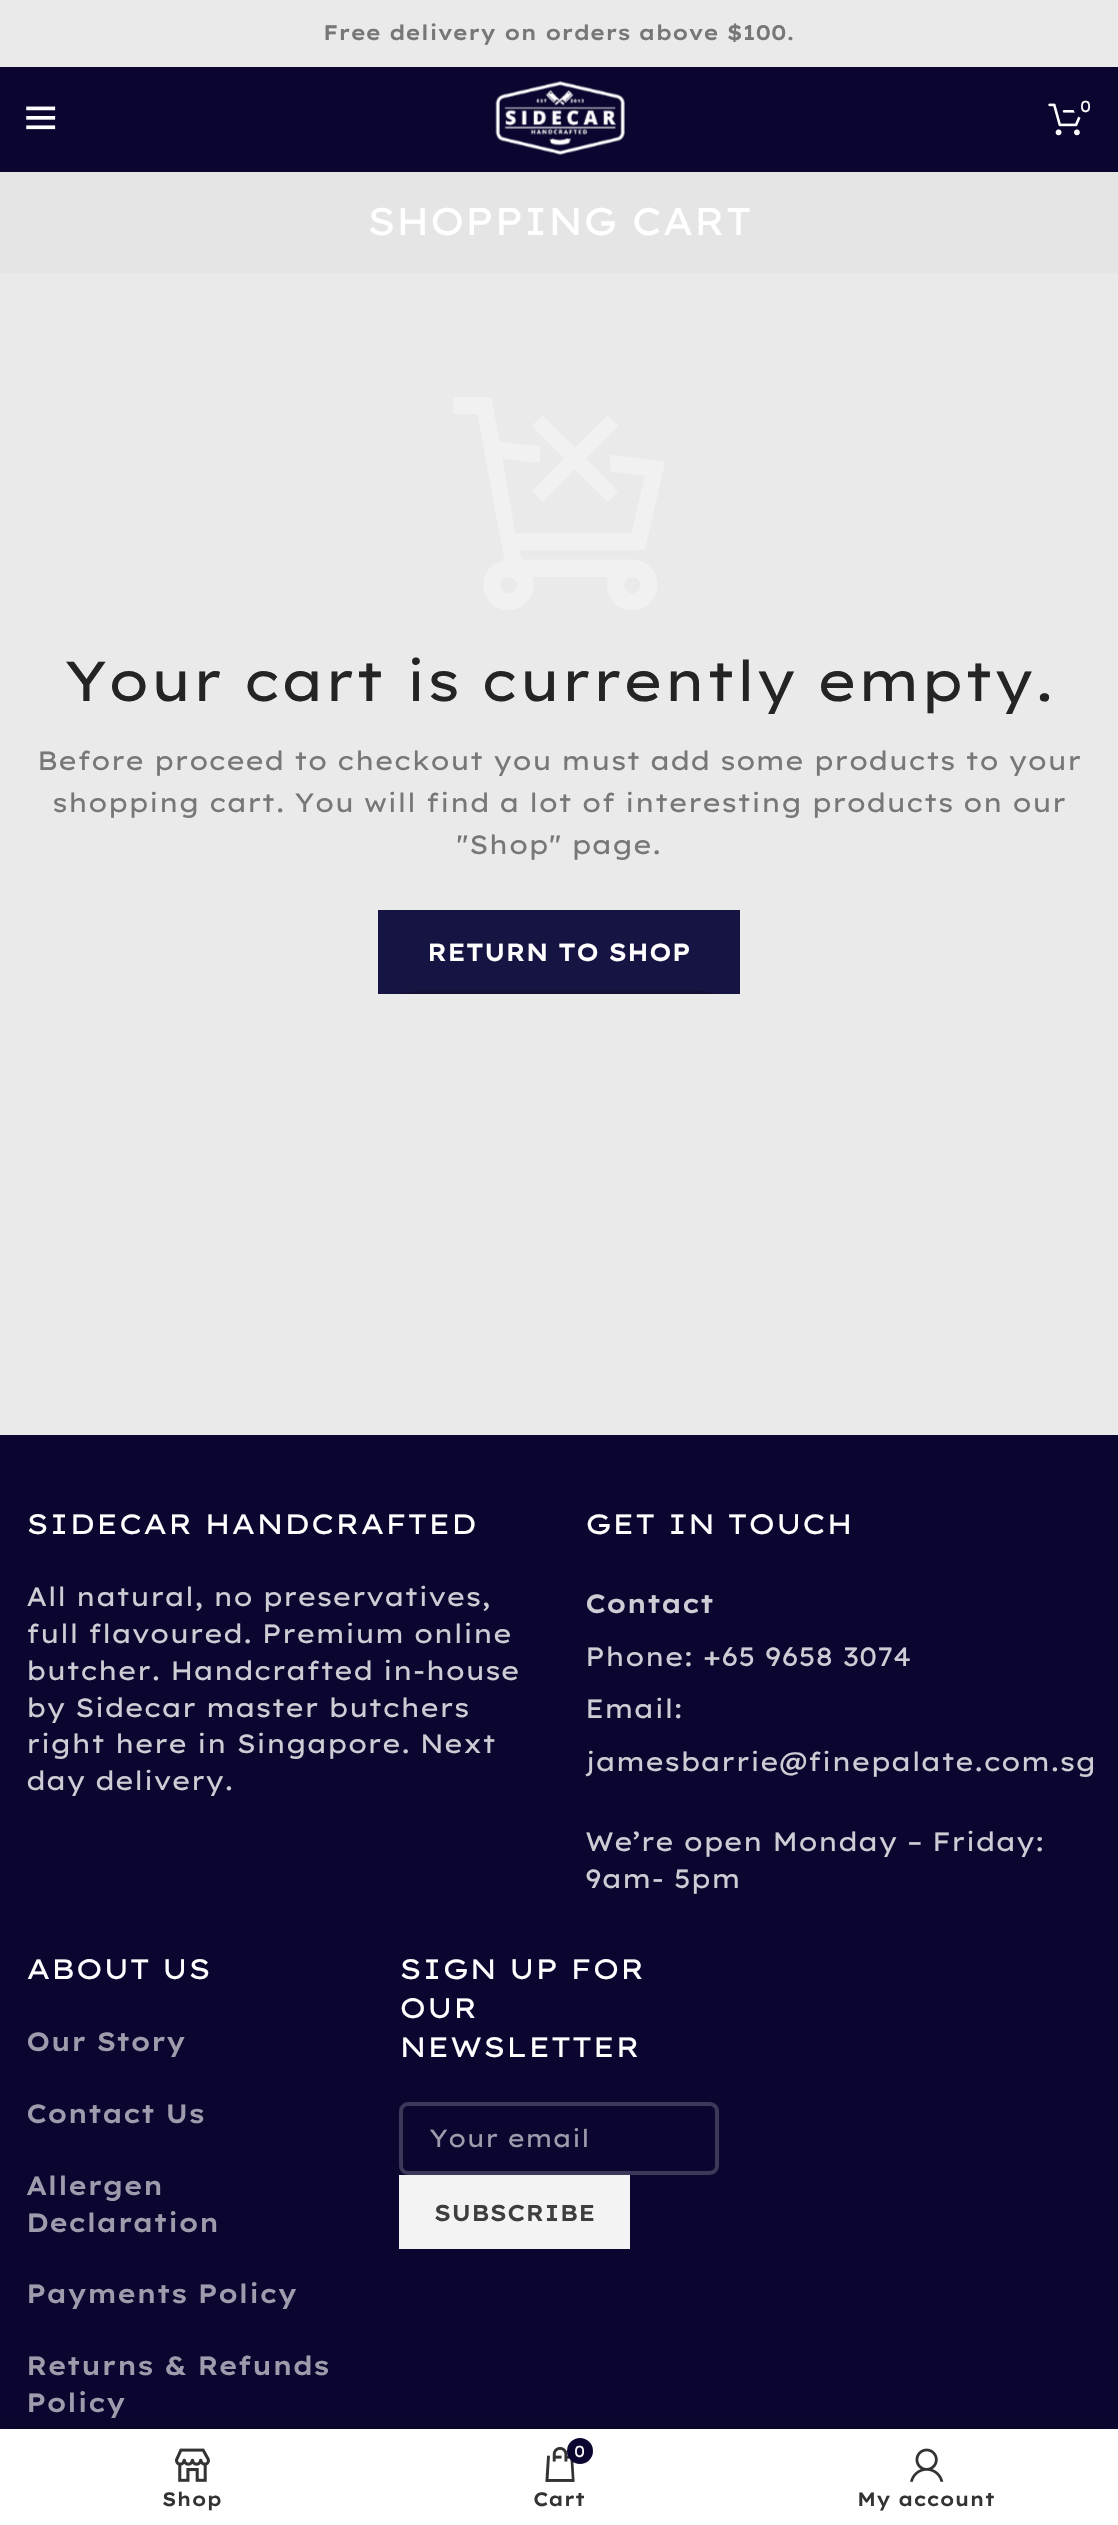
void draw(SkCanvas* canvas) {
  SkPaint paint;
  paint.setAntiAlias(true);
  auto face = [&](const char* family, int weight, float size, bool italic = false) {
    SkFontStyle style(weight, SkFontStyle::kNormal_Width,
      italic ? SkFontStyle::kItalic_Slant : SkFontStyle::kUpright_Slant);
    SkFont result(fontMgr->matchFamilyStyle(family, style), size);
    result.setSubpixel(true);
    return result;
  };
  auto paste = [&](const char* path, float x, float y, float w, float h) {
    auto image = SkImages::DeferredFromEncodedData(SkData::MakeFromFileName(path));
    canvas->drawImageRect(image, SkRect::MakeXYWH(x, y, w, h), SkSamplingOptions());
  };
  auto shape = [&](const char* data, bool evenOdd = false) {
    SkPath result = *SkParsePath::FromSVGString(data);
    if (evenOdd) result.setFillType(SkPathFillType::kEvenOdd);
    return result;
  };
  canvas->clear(0xffeaeaea);
  paint.setColor(0xff0a062f);
  canvas->drawRect(SkRect::MakeXYWH(0, 67, 1118, 105), paint);
  paste("img/1.png", 26, 106, 30, 24);
  paste("img/2.png", 495, 81, 130, 74);
  paste("img/3.png", 1048, 103, 33, 33);
  canvas->drawCircle(1086, 106, 13, paint);
  paint.setColor(0xffe5e5e5);
  canvas->drawRect(SkRect::MakeXYWH(0, 172, 1118, 101), paint);
  paste("img/4.png", 453, 397, 212, 213);
  paint.setColor(0xff161442);
  canvas->drawRect(SkRect::MakeXYWH(378, 910, 362, 84), paint);
  canvas->save();
  canvas->clipRect(SkRect::MakeXYWH(378, 910, 362, 84));
  paint.setColor(0xff131138);
  canvas->drawPath(shape("M205 737H914V1167H205ZM378 906H680C745 906 740 886 740 921V976C740 1011 745 990 680 990H438C373 990 378 1011 378 976Z", true), paint);
  canvas->restore();
  paint.setColor(0xff0a062f);
  canvas->drawRect(SkRect::MakeXYWH(0, 1435, 1118, 994), paint);
  paint.setStroke(true);
  paint.setStrokeWidth(4);
  paint.setColor(0xff3b3859);
  canvas->drawRoundRect(SkRect::MakeXYWH(401, 2104, 316, 69), 7, 7, paint);
  paint.setStroke(false);
  paint.setColor(0xfff3f3f3);
  canvas->drawRect(SkRect::MakeXYWH(399, 2175, 231, 74), paint);
  paint.setColor(0x1f000000);
  paint.setMaskFilter(SkMaskFilter::MakeBlur(kNormal_SkBlurStyle, 8));
  canvas->drawRect(SkRect::MakeXYWH(0, 2429, 1118, 96), paint);
  paint.setMaskFilter(nullptr);
  paint.setColor(0xffffffff);
  canvas->drawRect(SkRect::MakeXYWH(0, 2429, 1118, 96), paint);
  paste("img/5.png", 175, 2448, 35, 34);
  paste("img/6.png", 545, 2446, 30, 36);
  paint.setColor(0xff0a062f);
  canvas->drawCircle(580, 2451, 13, paint);
  paste("img/7.png", 910, 2448, 34, 34);
  auto f0 = face("Lexend Exa", 600, 21);
  paint.setColor(0xff777777);
  canvas->drawString("Free delivery on orders above $100.", 323, 40, f0, paint);
  auto f1 = face("Lexend Exa", 400, 16);
  paint.setColor(0xffffffff);
  canvas->drawString("0", 1080, 112, f1, paint);
  auto f2 = face("Lexend Exa", 400, 38.5f);
  canvas->drawString("SHOPPING CART", 367, 235, f2, paint);
  auto f3 = face("Lexend Exa", 400, 56);
  paint.setColor(0xff242424);
  canvas->drawString("Your cart is currently empty.", 64, 701, f3, paint);
  auto f4 = face("Lexend Exa", 400, 26.25f);
  paint.setColor(0xff777777);
  {
    const struct { const char* s; float x, y; } items[] = {
      {"Before proceed to checkout you must add some products to your", 37, 770},
      {"shopping cart. You will find a lot of interesting products on our", 52, 812},
      {"\"Shop\" page.", 456, 854},
    };
    for (auto [s, x, y] : items) {
      canvas->drawString(s, x, y, f4, paint);
    }
  }
  auto f5 = face("Lexend Exa", 600, 24.5f);
  paint.setColor(0xffffffff);
  canvas->drawString("RETURN TO SHOP", 427, 961, f5, paint);
  auto f6 = face("Lexend Mega", 400, 28);
  canvas->drawString("SIDECAR HANDCRAFTED", 26, 1534, f6, paint);
  paint.setColor(0xffcecdd5);
  {
    const struct { const char* s; float x, y; } items[] = {
      {"All natural, no preservatives,", 26, 1606},
      {"full flavoured. Premium online", 26, 1643},
      {"butcher. Handcrafted in-house", 26, 1680},
      {"by Sidecar master butchers", 26, 1717},
      {"right here in Singapore. Next", 26, 1753},
      {"day delivery.", 26, 1790},
    };
    for (auto [s, x, y] : items) {
      canvas->drawString(s, x, y, f4, paint);
    }
  }
  paint.setColor(0xffffffff);
  canvas->drawString("GET IN TOUCH", 585, 1534, f6, paint);
  auto f7 = face("Lexend Exa", 600, 26.25f);
  paint.setColor(0xffcecdd5);
  canvas->drawString("Contact", 585, 1613, f7, paint);
  {
    const struct { const char* s; float x, y; } items[] = {
      {"Phone: +65 9658 3074", 585, 1666},
      {"Email:", 585, 1718},
      {"jamesbarrie@finepalate.com.sg", 585, 1771},
      {"We’re open Monday – Friday:", 585, 1851},
      {"9am- 5pm", 585, 1888},
    };
    for (auto [s, x, y] : items) {
      canvas->drawString(s, x, y, f4, paint);
    }
  }
  paint.setColor(0xffffffff);
  canvas->drawString("ABOUT US", 26, 1979, f6, paint);
  paint.setColor(0xff9d9bac);
  {
    const struct { const char* s; float x, y; } items[] = {
      {"Our Story", 26, 2051},
      {"Contact Us", 26, 2123},
      {"Allergen", 26, 2195},
      {"Declaration", 26, 2232},
      {"Payments Policy", 26, 2303},
      {"Returns & Refunds", 26, 2375},
      {"Policy", 26, 2412},
    };
    for (auto [s, x, y] : items) {
      canvas->drawString(s, x, y, f7, paint);
    }
  }
  paint.setColor(0xffffffff);
  {
    const struct { const char* s; float x, y; } items[] = {
      {"SIGN UP FOR", 399, 1979},
      {"OUR", 399, 2018},
      {"NEWSLETTER", 399, 2057},
    };
    for (auto [s, x, y] : items) {
      canvas->drawString(s, x, y, f6, paint);
    }
  }
  auto f8 = face("Lexend Exa", 400, 24.5f);
  paint.setColor(0xff9d9bac);
  canvas->drawString("Your email", 429, 2147, f8, paint);
  auto f9 = face("Lexend Exa", 600, 22.75f);
  paint.setColor(0xff3e3e3e);
  canvas->drawString("SUBSCRIBE", 434, 2221, f9, paint);
  auto f10 = face("Lexend Exa", 600, 19.25f);
  paint.setColor(0xff333333);
  canvas->drawString("Shop", 162, 2506, f10, paint);
  paint.setColor(0xffffffff);
  canvas->drawString("0", 574, 2457, f1, paint);
  paint.setColor(0xff333333);
  canvas->drawString("Cart", 533, 2506, f10, paint);
  canvas->drawString("My account", 857, 2506, f10, paint);
}
